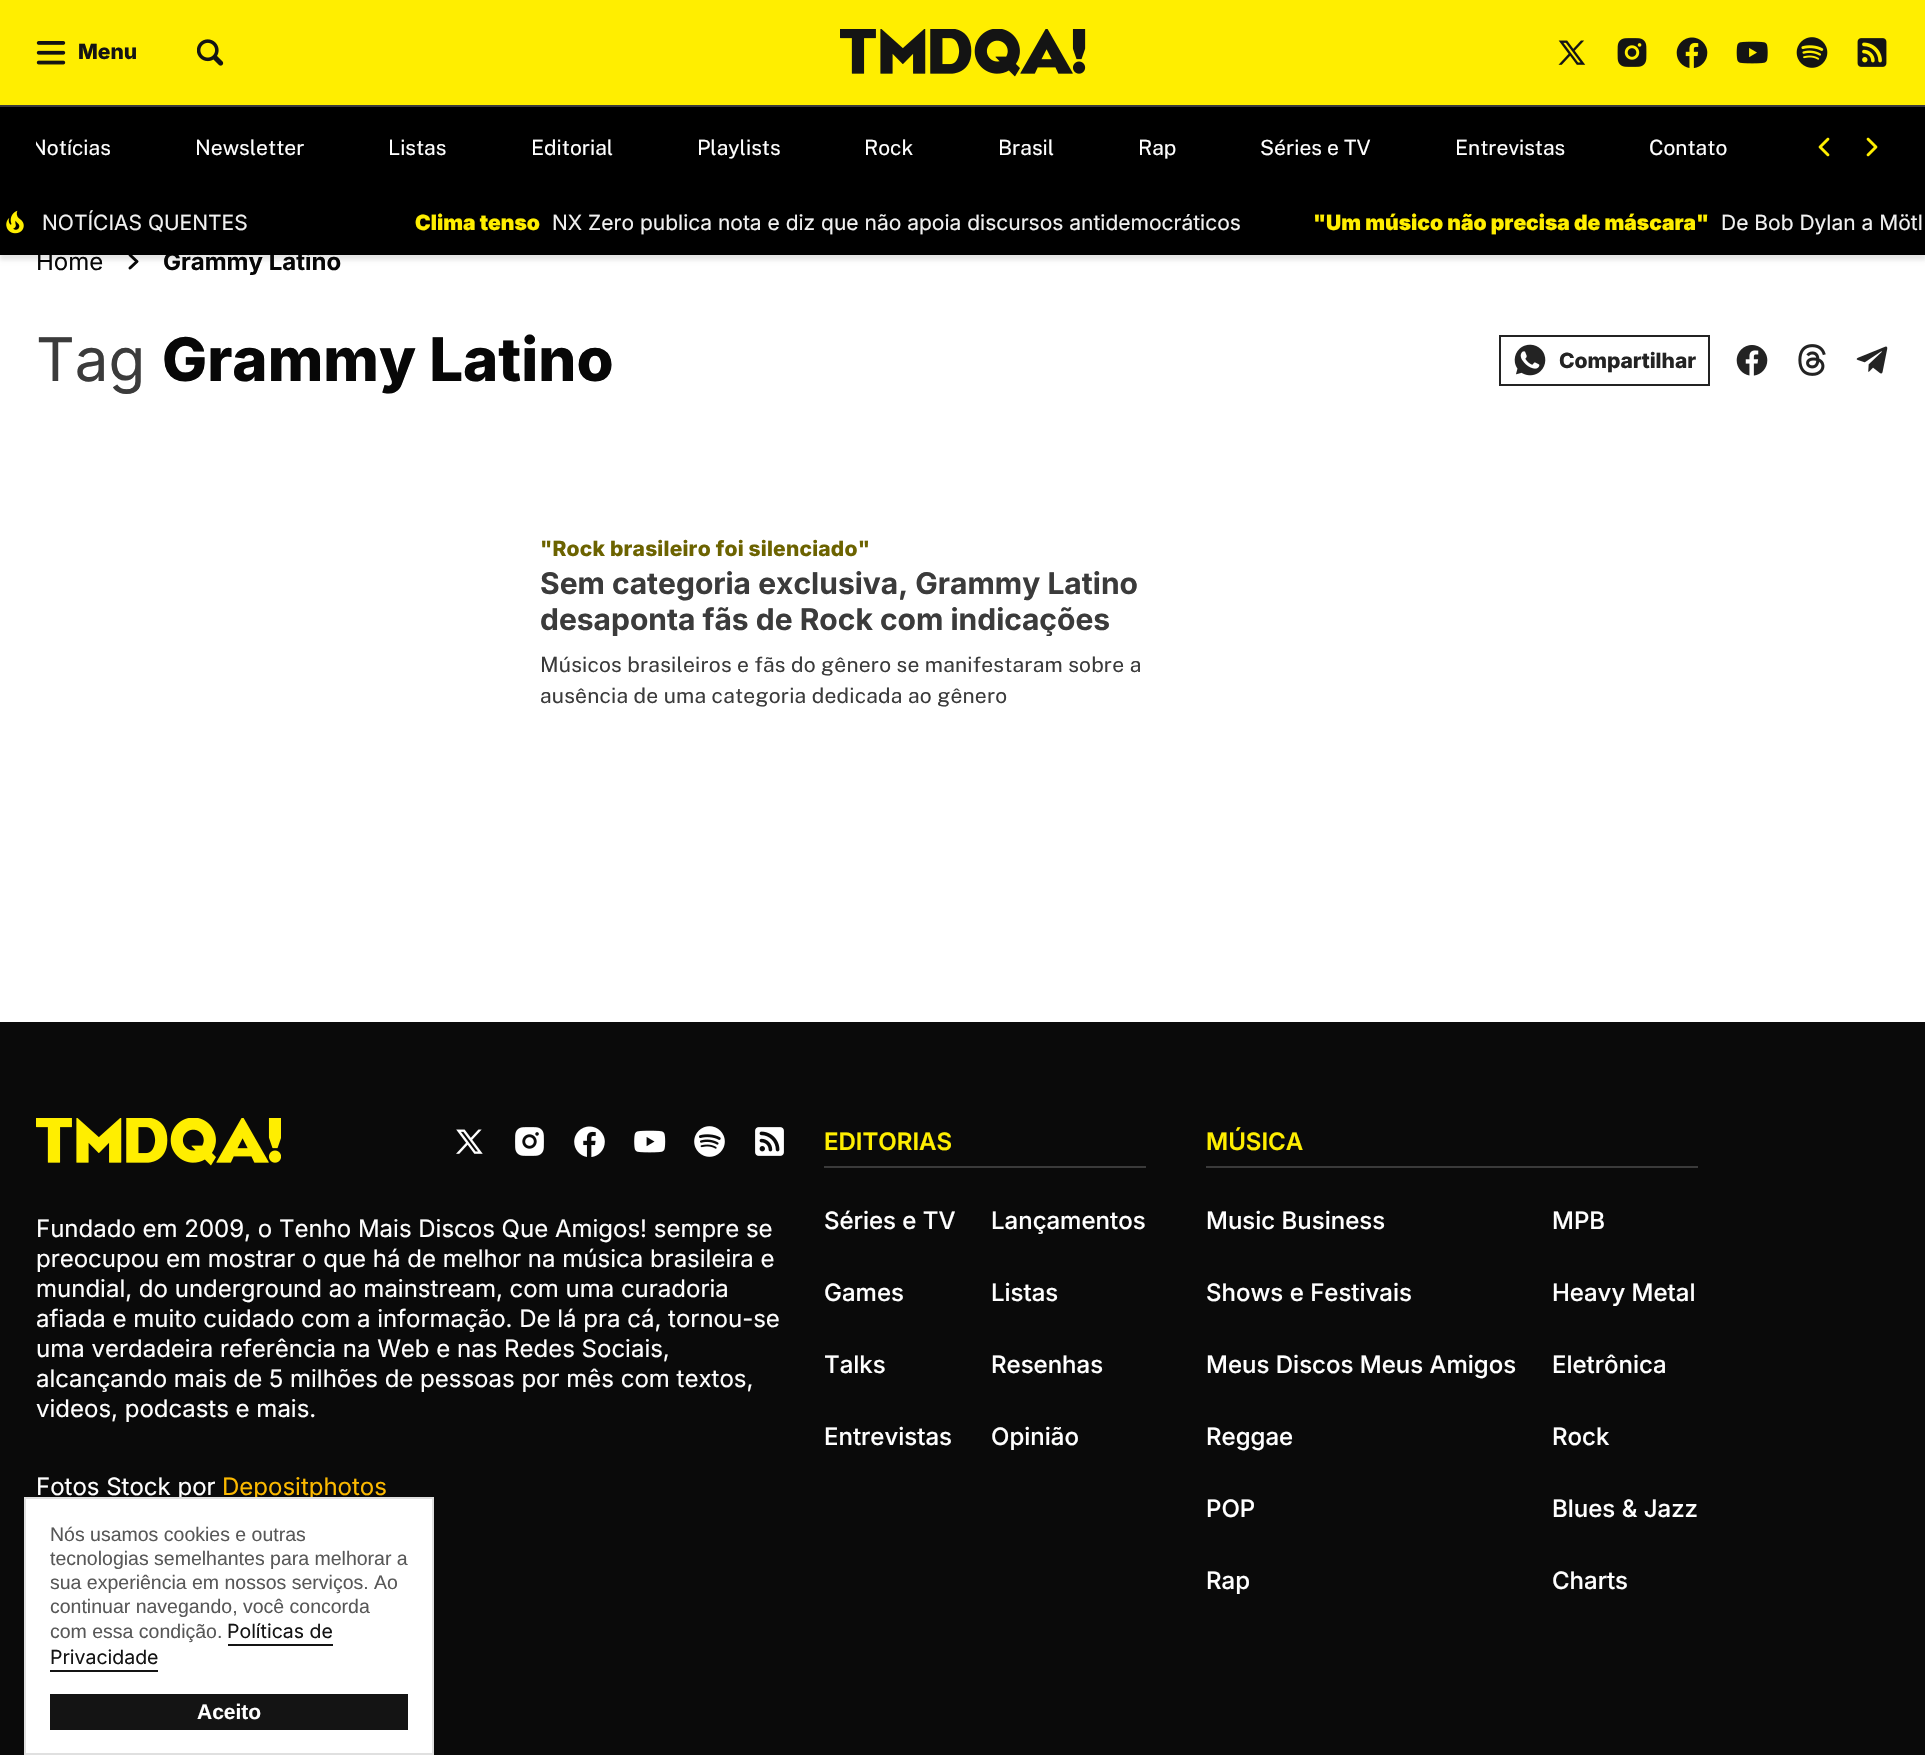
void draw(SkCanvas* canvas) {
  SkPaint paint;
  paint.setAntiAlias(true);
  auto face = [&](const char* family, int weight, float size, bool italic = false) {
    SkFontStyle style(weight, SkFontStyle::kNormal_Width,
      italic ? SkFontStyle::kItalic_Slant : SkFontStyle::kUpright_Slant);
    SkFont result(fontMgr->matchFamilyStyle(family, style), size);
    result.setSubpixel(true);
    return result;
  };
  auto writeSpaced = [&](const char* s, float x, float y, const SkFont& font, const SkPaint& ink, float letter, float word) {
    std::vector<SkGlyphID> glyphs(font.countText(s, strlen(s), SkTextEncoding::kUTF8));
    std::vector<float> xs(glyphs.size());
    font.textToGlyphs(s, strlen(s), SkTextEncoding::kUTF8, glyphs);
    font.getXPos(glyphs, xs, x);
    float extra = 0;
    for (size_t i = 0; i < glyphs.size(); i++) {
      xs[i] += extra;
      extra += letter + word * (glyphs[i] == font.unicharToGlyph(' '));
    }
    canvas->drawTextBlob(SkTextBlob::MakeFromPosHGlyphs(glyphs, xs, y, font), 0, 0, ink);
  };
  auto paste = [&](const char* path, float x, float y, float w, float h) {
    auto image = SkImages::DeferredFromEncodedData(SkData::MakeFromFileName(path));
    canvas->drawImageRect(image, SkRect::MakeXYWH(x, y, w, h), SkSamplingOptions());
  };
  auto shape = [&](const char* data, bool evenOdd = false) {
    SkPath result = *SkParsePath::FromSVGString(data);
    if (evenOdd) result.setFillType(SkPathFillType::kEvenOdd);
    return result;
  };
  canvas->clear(0xffffffff);
  paint.setStroke(true);
  paint.setStrokeWidth(3);
  paint.setStrokeCap(SkPaint::kRound_Cap);
  paint.setStrokeJoin(SkPaint::kRound_Join);
  paint.setColor(0xff070707);
  canvas->drawPath(shape("M130 268L137 261.5L130 255"), paint);
  paint.setStroke(false);
  paint.setColor(0x1a000000);
  paint.setMaskFilter(SkMaskFilter::MakeBlur(kNormal_SkBlurStyle, 2));
  canvas->drawRect(SkRect::MakeXYWH(0, 5, 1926, 255), paint);
  paint.setMaskFilter(nullptr);
  paint.setColor(0xffffee00);
  canvas->drawRect(SkRect::MakeXYWH(0, 0, 1925, 105), paint);
  paste("img/1.png", 36, 41, 30, 24);
  paste("img/2.png", 197, 39, 27, 27);
  paste("img/3.png", 840, 29, 246, 48);
  paste("img/4.png", 1558, 40, 28, 25);
  paste("img/5.png", 1617, 38, 30, 29);
  paste("img/6.png", 1676, 37, 32, 31);
  paste("img/7.png", 1736, 41, 32, 23);
  paste("img/8.png", 1796, 37, 32, 31);
  paste("img/9.png", 1857, 38, 30, 29);
  paint.setColor(0xff3a3a3a);
  canvas->drawRect(SkRect::MakeXYWH(0, 105, 1925, 2), paint);
  paint.setStroke(true);
  paint.setStrokeWidth(2);
  paint.setStrokeCap(SkPaint::kButt_Cap);
  paint.setStrokeJoin(SkPaint::kMiter_Join);
  paint.setColor(0xff232323);
  canvas->drawRect(SkRect::MakeXYWH(1500, 336, 209, 49), paint);
  paste("img/13.png", 1514, 344, 32, 32);
  paste("img/14.png", 1736, 345, 32, 31);
  paste("img/15.png", 1798, 344, 28, 32);
  paste("img/16.png", 1856, 346, 32, 28);
  paint.setStroke(false);
  paint.setColor(0xff0a0a0a);
  canvas->drawRect(SkRect::MakeXYWH(0, 1022, 1925, 733), paint);
  paste("img/17.png", 36, 1118, 245, 48);
  paste("img/18.png", 456, 1129, 27, 25);
  paste("img/19.png", 515, 1127, 29, 29);
  paste("img/20.png", 574, 1126, 31, 31);
  paste("img/21.png", 634, 1130, 32, 23);
  paste("img/22.png", 694, 1126, 31, 31);
  paste("img/23.png", 755, 1127, 29, 29);
  paint.setColor(0xff3a3a3a);
  canvas->drawRect(SkRect::MakeXYWH(824, 1166, 322, 2), paint);
  canvas->drawRect(SkRect::MakeXYWH(1206, 1166, 492, 2), paint);
  auto f0 = face("Inter", 800, 21);
  paint.setColor(0xff141414);
  canvas->drawString("Menu", 78, 59, f0, paint);
  auto f1 = face("Inter", 400, 24);
  paint.setColor(0xff070707);
  canvas->drawString("Home", 36, 270, f1, paint);
  auto f2 = face("Inter", 700, 24);
  canvas->drawString("Grammy Latino", 163, 270, f2, paint);
  paint.setColor(0xff000000);
  canvas->drawRect(SkRect::MakeXYWH(0, 107, 1925, 148), paint);
  auto f3 = face("Inter", 400, 21);
  paint.setColor(0xfff1f1f1);
  canvas->drawString("De Bob Dylan a Mötl", 1721, 230, f3, paint);
  auto f4 = face("Inter", 900, 21);
  paint.setColor(0xffffee00);
  canvas->drawString("\"Um músico não precisa de máscara\"", 1313, 230, f4, paint);
  paint.setColor(0xfff1f1f1);
  canvas->drawString("NX Zero publica nota e diz que não apoia discursos antidemocráticos", 552, 230, f3, paint);
  paint.setColor(0xffffee00);
  canvas->drawString("Clima tenso", 415, 230, f4, paint);
  paste("img/11.png", 1866, 137, 12, 20);
  paste("img/10.png", 1818, 137, 12, 20);
  auto f5 = face("Public Sans", 400, 21);
  paint.setColor(0xffffffff);
  {
    const struct { const char* s; float x, y; } items[] = {
      {"Contato", 1649, 155},
      {"Entrevistas", 1455, 155},
      {"Séries e TV", 1260, 155},
      {"Rap", 1138, 155},
      {"Brasil", 998, 155},
      {"Rock", 864, 155},
      {"Playlists", 697, 155},
      {"Editorial", 531, 155},
      {"Listas", 388, 155},
      {"Newsletter", 195, 155},
    };
    for (auto [s, x, y] : items) {
      canvas->drawString(s, x, y, f5, paint);
    }
  }
  canvas->save();
  canvas->clipRect(SkRect::MakeXYWH(36, 129, 1734, 36));
  canvas->drawString("Notícias", 31, 155, f5, paint);
  canvas->restore();
  paste("img/12.png", 6, 210, 18, 24);
  paint.setColor(0xfff1f1f1);
  canvas->drawString("NOTÍCIAS QUENTES", 42, 230, f3, paint);
  auto f6 = face("Inter", 400, 60);
  paint.setColor(0xff3b3b3b);
  canvas->drawString("Tag", 36, 381, f6, paint);
  auto f7 = face("Inter", 800, 60);
  paint.setColor(0xff070707);
  canvas->drawString("Grammy Latino", 162, 381, f7, paint);
  paint.setColor(0xff232323);
  canvas->drawString("Compartilhar", 1559, 368, f0, paint);
  paint.setColor(0xff6c6300);
  writeSpaced("\"Rock brasileiro foi silenciado\"", 540, 556, f0, paint, 0.2f, 0);
  auto f8 = face("Inter", 700, 30);
  paint.setColor(0xff3b3b3b);
  canvas->drawString("Sem categoria exclusiva, Grammy Latino", 540, 594, f8, paint);
  canvas->drawString("desaponta fãs de Rock com indicações", 540, 630, f8, paint);
  writeSpaced("Músicos brasileiros e fãs do gênero se manifestaram sobre a", 540, 672, f5, paint, 0.2f, 0);
  writeSpaced("ausência de uma categoria dedicada ao gênero", 540, 703, f5, paint, 0.2f, 0);
  paint.setColor(0xffffffff);
  {
    const struct { const char* s; float x, y; } items[] = {
      {"Fundado em 2009, o Tenho Mais Discos Que Amigos! sempre se", 36, 1237},
      {"preocupou em mostrar o que há de melhor na música brasileira e", 36, 1267},
      {"mundial, do underground ao mainstream, com uma curadoria", 36, 1297},
      {"afiada e muito cuidado com a informação. De lá pra cá, tornou-se", 36, 1327},
      {"uma verdadeira referência na Web e nas Redes Sociais,", 36, 1357},
      {"alcançando mais de 5 milhões de pessoas por mês com textos,", 36, 1387},
      {"videos, podcasts e mais.", 36, 1417},
      {"Fotos Stock por", 36, 1495},
    };
    for (auto [s, x, y] : items) {
      canvas->drawString(s, x, y, f1, paint);
    }
  }
  paint.setColor(0xfffcb900);
  canvas->drawString("Depositphotos", 222, 1495, f1, paint);
  auto f9 = face("Inter", 600, 24);
  paint.setColor(0xffffee00);
  canvas->drawString("EDITORIAS", 824, 1150, f9, paint);
  auto f10 = face("Inter", 500, 24);
  paint.setColor(0xffffffff);
  {
    const struct { const char* s; float x, y; } items[] = {
      {"Séries e TV", 824, 1229},
      {"Games", 824, 1301},
      {"Talks", 824, 1373},
      {"Entrevistas", 824, 1445},
      {"Lançamentos", 991, 1229},
      {"Listas", 991, 1301},
      {"Resenhas", 991, 1373},
      {"Opinião", 991, 1445},
    };
    for (auto [s, x, y] : items) {
      canvas->drawString(s, x, y, f10, paint);
    }
  }
  paint.setColor(0xffffee00);
  canvas->drawString("MÚSICA", 1206, 1150, f9, paint);
  paint.setColor(0xffffffff);
  {
    const struct { const char* s; float x, y; } items[] = {
      {"Music Business", 1206, 1229},
      {"Shows e Festivais", 1206, 1301},
      {"Meus Discos Meus Amigos", 1206, 1373},
      {"Reggae", 1206, 1445},
      {"POP", 1206, 1517},
      {"Rap", 1206, 1589},
      {"MPB", 1552, 1229},
      {"Heavy Metal", 1552, 1301},
      {"Eletrônica", 1552, 1373},
      {"Rock", 1552, 1445},
      {"Blues & Jazz", 1552, 1517},
      {"Charts", 1552, 1589},
    };
    for (auto [s, x, y] : items) {
      canvas->drawString(s, x, y, f10, paint);
    }
  }
  canvas->drawRect(SkRect::MakeXYWH(25, 1498, 408, 256), paint);
  paint.setStroke(true);
  paint.setColor(0xffe0e0e0);
  canvas->drawRect(SkRect::MakeXYWH(25, 1498, 408, 256), paint);
  auto f11 = face("Liberation Sans", 400, 19.5f);
  paint.setStroke(false);
  paint.setColor(0xff585858);
  {
    const struct { const char* s; float x, y; } items[] = {
      {"Nós usamos cookies e outras", 50, 1541},
      {"tecnologias semelhantes para melhorar a", 50, 1565},
      {"sua experiência em nossos serviços. Ao", 50, 1589},
      {"continuar navegando, você concorda", 50, 1613},
      {"com essa condição.", 50, 1638},
    };
    for (auto [s, x, y] : items) {
      canvas->drawString(s, x, y, f11, paint);
    }
  }
  auto f12 = face("Inter", 400, 19.5f);
  paint.setColor(0xff141414);
  canvas->drawString("Políticas de", 227, 1638, f12, paint);
  canvas->drawRect(SkRect::MakeXYWH(228, 1644, 105, 2), paint);
  canvas->drawString("Privacidade", 50, 1664, f12, paint);
  canvas->drawRect(SkRect::MakeXYWH(50, 1670, 108, 2), paint);
  canvas->drawRect(SkRect::MakeXYWH(50, 1694, 358, 36), paint);
  auto f13 = face("Liberation Sans", 700, 21);
  paint.setColor(0xffffffff);
  canvas->drawString("Aceito", 197, 1719, f13, paint);
}
